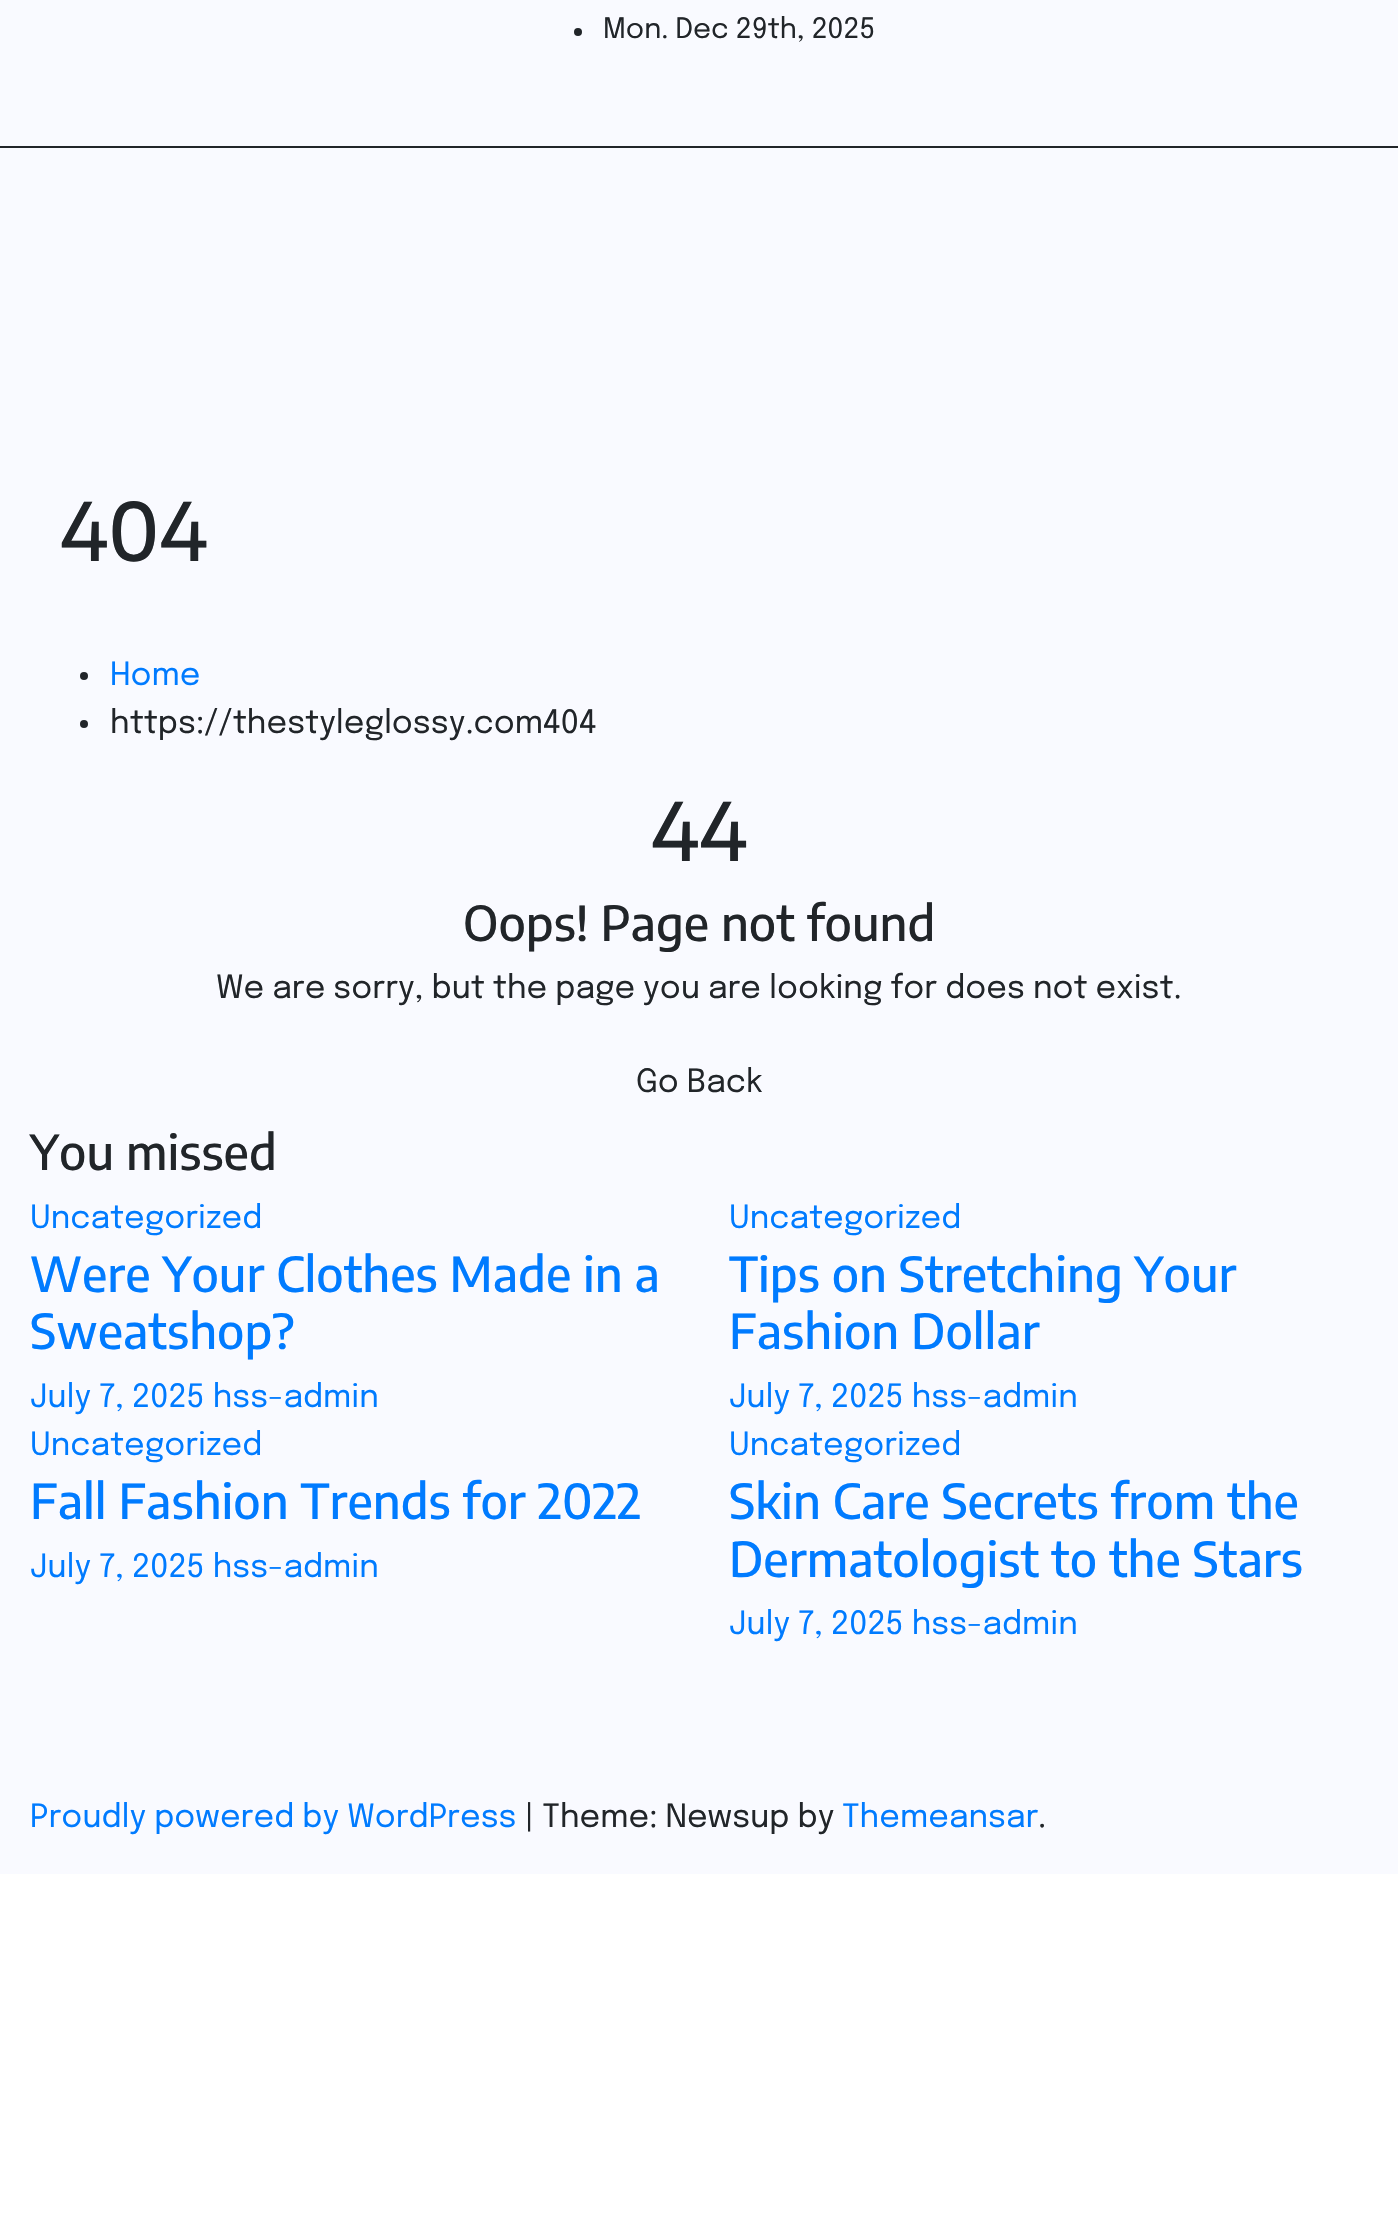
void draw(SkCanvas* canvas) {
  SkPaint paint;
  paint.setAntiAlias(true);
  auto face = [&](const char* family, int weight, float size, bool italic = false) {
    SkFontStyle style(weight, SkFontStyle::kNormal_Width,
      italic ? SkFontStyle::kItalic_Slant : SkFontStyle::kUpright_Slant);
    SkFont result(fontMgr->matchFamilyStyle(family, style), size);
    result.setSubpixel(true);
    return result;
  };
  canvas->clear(0xffffffff);
  paint.setColor(0xfff9faff);
  canvas->drawRect(SkRect::MakeXYWH(0, 0, 1398, 1874), paint);
  paint.setColor(0xff212529);
  canvas->drawRect(SkRect::MakeXYWH(0, 146, 1398, 2), paint);
  canvas->drawCircle(578, 32, 4, paint);
  canvas->drawCircle(84, 676, 4, paint);
  canvas->drawCircle(84, 724, 4, paint);
  auto f0 = face("Epilogue", 400, 28);
  canvas->drawString("Mon. Dec 29th, 2025", 603, 38, f0, paint);
  auto f1 = face("Encode Sans Condensed", 500, 80);
  canvas->drawString("404", 60, 561, f1, paint);
  auto f2 = face("Epilogue", 400, 32);
  paint.setColor(0xff007bff);
  canvas->drawString("Home", 110, 685, f2, paint);
  paint.setColor(0xff212529);
  canvas->drawString("https://thestyleglossy.com404", 110, 733, f2, paint);
  canvas->drawString("44", 651, 861, f1, paint);
  auto f3 = face("Encode Sans Condensed", 500, 48);
  canvas->drawString("Oops! Page not found", 463, 941, f3, paint);
  canvas->drawString("We are sorry, but the page you are looking for does not exist.", 216, 998, f2, paint);
  canvas->drawString("Go Back", 636, 1092, f2, paint);
  canvas->drawString("You missed", 30, 1170, f3, paint);
  paint.setColor(0xff007bff);
  canvas->drawString("Uncategorized", 30, 1228, f2, paint);
  canvas->drawString("Were Your Clothes Made in a", 30, 1292, f3, paint);
  canvas->drawString("Sweatshop?", 30, 1349, f3, paint);
  canvas->drawString("July 7, 2025 hss-admin", 30, 1407, f2, paint);
  canvas->drawString("Uncategorized", 729, 1228, f2, paint);
  canvas->drawString("Tips on Stretching Your", 729, 1292, f3, paint);
  canvas->drawString("Fashion Dollar", 729, 1349, f3, paint);
  canvas->drawString("July 7, 2025 hss-admin", 729, 1407, f2, paint);
  canvas->drawString("Uncategorized", 30, 1455, f2, paint);
  canvas->drawString("Fall Fashion Trends for 2022", 30, 1519, f3, paint);
  canvas->drawString("July 7, 2025 hss-admin", 30, 1577, f2, paint);
  canvas->drawString("Uncategorized", 729, 1455, f2, paint);
  canvas->drawString("Skin Care Secrets from the", 729, 1519, f3, paint);
  canvas->drawString("Dermatologist to the Stars", 729, 1577, f3, paint);
  canvas->drawString("July 7, 2025 hss-admin", 729, 1634, f2, paint);
  canvas->drawString("Proudly powered by WordPress", 30, 1827, f2, paint);
  paint.setColor(0xff212529);
  canvas->drawString("| Theme: Newsup by", 525, 1827, f2, paint);
  paint.setColor(0xff007bff);
  canvas->drawString("Themeansar", 842, 1827, f2, paint);
  paint.setColor(0xff212529);
  canvas->drawString(".", 1038, 1827, f2, paint);
}
